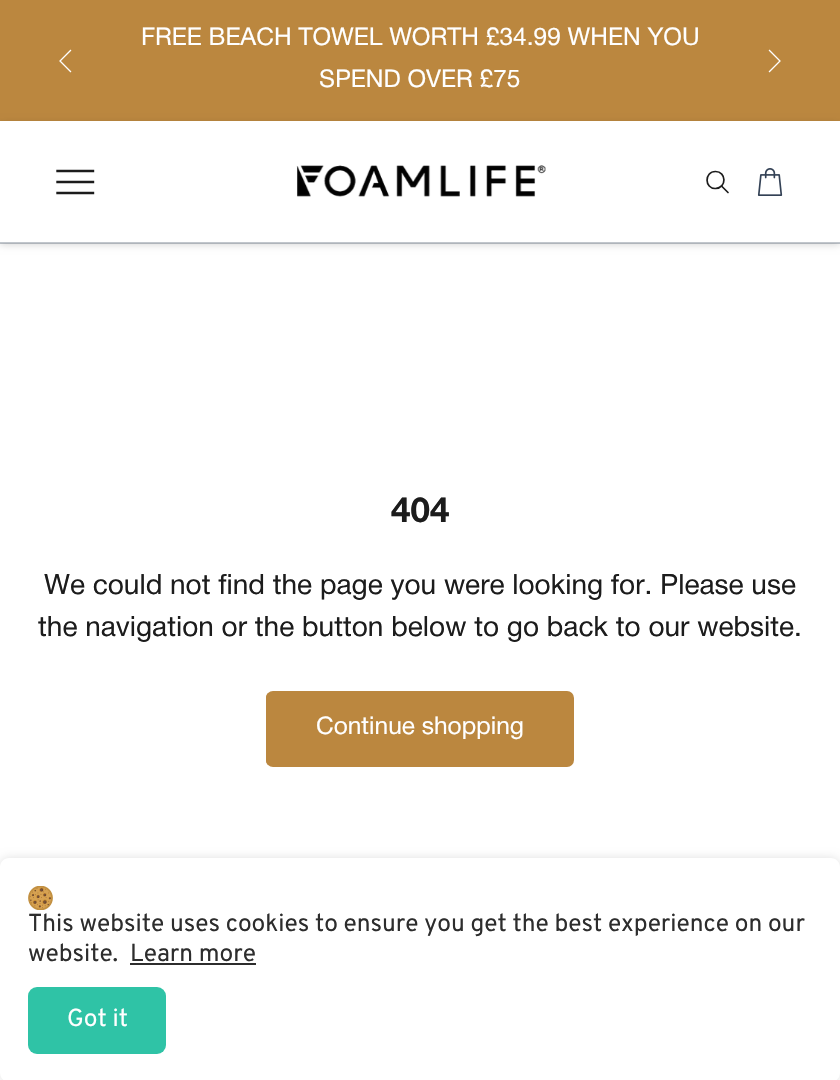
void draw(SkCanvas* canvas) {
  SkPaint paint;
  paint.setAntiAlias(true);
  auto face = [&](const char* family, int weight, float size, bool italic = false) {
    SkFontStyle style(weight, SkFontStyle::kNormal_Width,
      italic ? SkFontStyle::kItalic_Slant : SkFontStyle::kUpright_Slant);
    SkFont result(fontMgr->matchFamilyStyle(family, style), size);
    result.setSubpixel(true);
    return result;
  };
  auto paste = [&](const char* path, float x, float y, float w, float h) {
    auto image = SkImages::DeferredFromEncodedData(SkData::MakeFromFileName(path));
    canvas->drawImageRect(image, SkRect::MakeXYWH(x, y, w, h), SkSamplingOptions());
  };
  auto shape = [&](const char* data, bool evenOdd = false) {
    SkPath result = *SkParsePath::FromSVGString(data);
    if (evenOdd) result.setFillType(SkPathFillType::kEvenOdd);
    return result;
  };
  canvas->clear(0xffffffff);
  paint.setColor(0xffbb873f);
  canvas->drawRect(SkRect::MakeXYWH(0, 0, 840, 121), paint);
  paint.setStroke(true);
  paint.setStrokeWidth(1.3f);
  paint.setStrokeCap(SkPaint::kSquare_Cap);
  paint.setColor(0xffffffff);
  canvas->drawPath(shape("M70.5 50.5L60 61L70.5 71.5"), paint);
  canvas->drawPath(shape("M769.5 71.5L780 61L769.5 50.5"), paint);
  canvas->save();
  canvas->clipPath(shape("M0 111H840V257H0ZM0 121H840V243H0Z", true), true);
  paint.setStroke(false);
  paint.setColor(0x26000000);
  paint.setMaskFilter(SkMaskFilter::MakeBlur(kNormal_SkBlurStyle, 3.5f));
  canvas->drawRect(SkRect::MakeXYWH(0, 123, 840, 122), paint);
  paint.setMaskFilter(nullptr);
  canvas->restore();
  paint.setColor(0x4d334155);
  canvas->drawRect(SkRect::MakeXYWH(0, 242, 840, 2), paint);
  paint.setStroke(true);
  paint.setStrokeWidth(2.4f);
  paint.setColor(0xff1c1c1c);
  canvas->drawPath(shape("M57.5 193H93M57.5 182H93M57.5 171H93"), paint);
  paste("img/1.png", 296, 165, 250, 32);
  paint.setStrokeWidth(1.7f);
  paint.setStrokeCap(SkPaint::kButt_Cap);
  canvas->drawPath(shape("M715.5 171.5C704 171.5 704.5 189 715.5 188.5C727 188 726.5 171.5 715.5 171.5Z"), paint);
  paint.setStrokeCap(SkPaint::kRound_Cap);
  canvas->drawPath(shape("M722 186.5L728 192.5"), paint);
  paste("img/2.png", 757, 168, 26, 28);
  canvas->save();
  canvas->clipPath(shape("M273 691H567C571 691 574 694 574 698V760C574 764 571 767 567 767H273C269 767 266 764 266 760V698C266 694 269 691 273 691Z"), true);
  paint.setStroke(false);
  paint.setColor(0xffbb873f);
  canvas->drawRect(SkRect::MakeXYWH(266, 693, 306, 72), paint);
  canvas->restore();
  paint.setStroke(true);
  paint.setStrokeWidth(2);
  paint.setStrokeCap(SkPaint::kButt_Cap);
  canvas->drawRoundRect(SkRect::MakeXYWH(267, 692, 306, 74), 6, 6, paint);
  canvas->save();
  canvas->clipPath(shape("M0 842H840V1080H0ZM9 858H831C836 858 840 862 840 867V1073C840 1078 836 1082 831 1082H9C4 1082 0 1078 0 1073V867C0 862 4 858 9 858Z", true), true);
  paint.setStroke(false);
  paint.setColor(0x1f000000);
  paint.setMaskFilter(SkMaskFilter::MakeBlur(kNormal_SkBlurStyle, 5));
  canvas->drawRoundRect(SkRect::MakeXYWH(0, 858, 840, 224), 9, 9, paint);
  paint.setMaskFilter(nullptr);
  canvas->restore();
  paste("img/3.png", 28, 886, 25, 24);
  paint.setColor(0xff2d2d2d);
  canvas->drawRect(SkRect::MakeXYWH(130, 963, 126, 2), paint);
  paint.setColor(0xff2fc3a6);
  canvas->drawRoundRect(SkRect::MakeXYWH(28, 987, 138, 67), 9, 9, paint);
  auto f0 = face("Helvetica Neue", 400, 24.5f);
  paint.setColor(0xffffffff);
  canvas->drawString("FREE BEACH TOWEL WORTH £34.99 WHEN YOU", 141, 45, f0, paint);
  canvas->drawString("SPEND OVER £75", 319, 87, f0, paint);
  auto f1 = face("Helvetica Neue", 700, 35);
  paint.setColor(0xff1c1c1c);
  canvas->drawString("404", 391, 522, f1, paint);
  auto f2 = face("Helvetica Neue", 400, 28);
  canvas->drawString("We could not find the page you were looking for. Please use", 44, 594, f2, paint);
  canvas->drawString("the navigation or the button below to go back to our website.", 38, 636, f2, paint);
  paint.setColor(0xffffffff);
  canvas->drawString("Continue shopping", 316, 734, f0, paint);
  auto f3 = face("Overpass", 400, 24.5f);
  paint.setColor(0xff2d2d2d);
  {
    const struct { const char* s; float x, y; } items[] = {
      {"This website uses cookies to ensure you get the best experience on our", 28, 931},
      {"website.", 28, 961},
      {"Learn more", 130, 961},
    };
    for (auto [s, x, y] : items) {
      canvas->drawString(s, x, y, f3, paint);
    }
  }
  paint.setColor(0xffffffff);
  canvas->drawString("Got it", 67, 1026, f3, paint);
}
